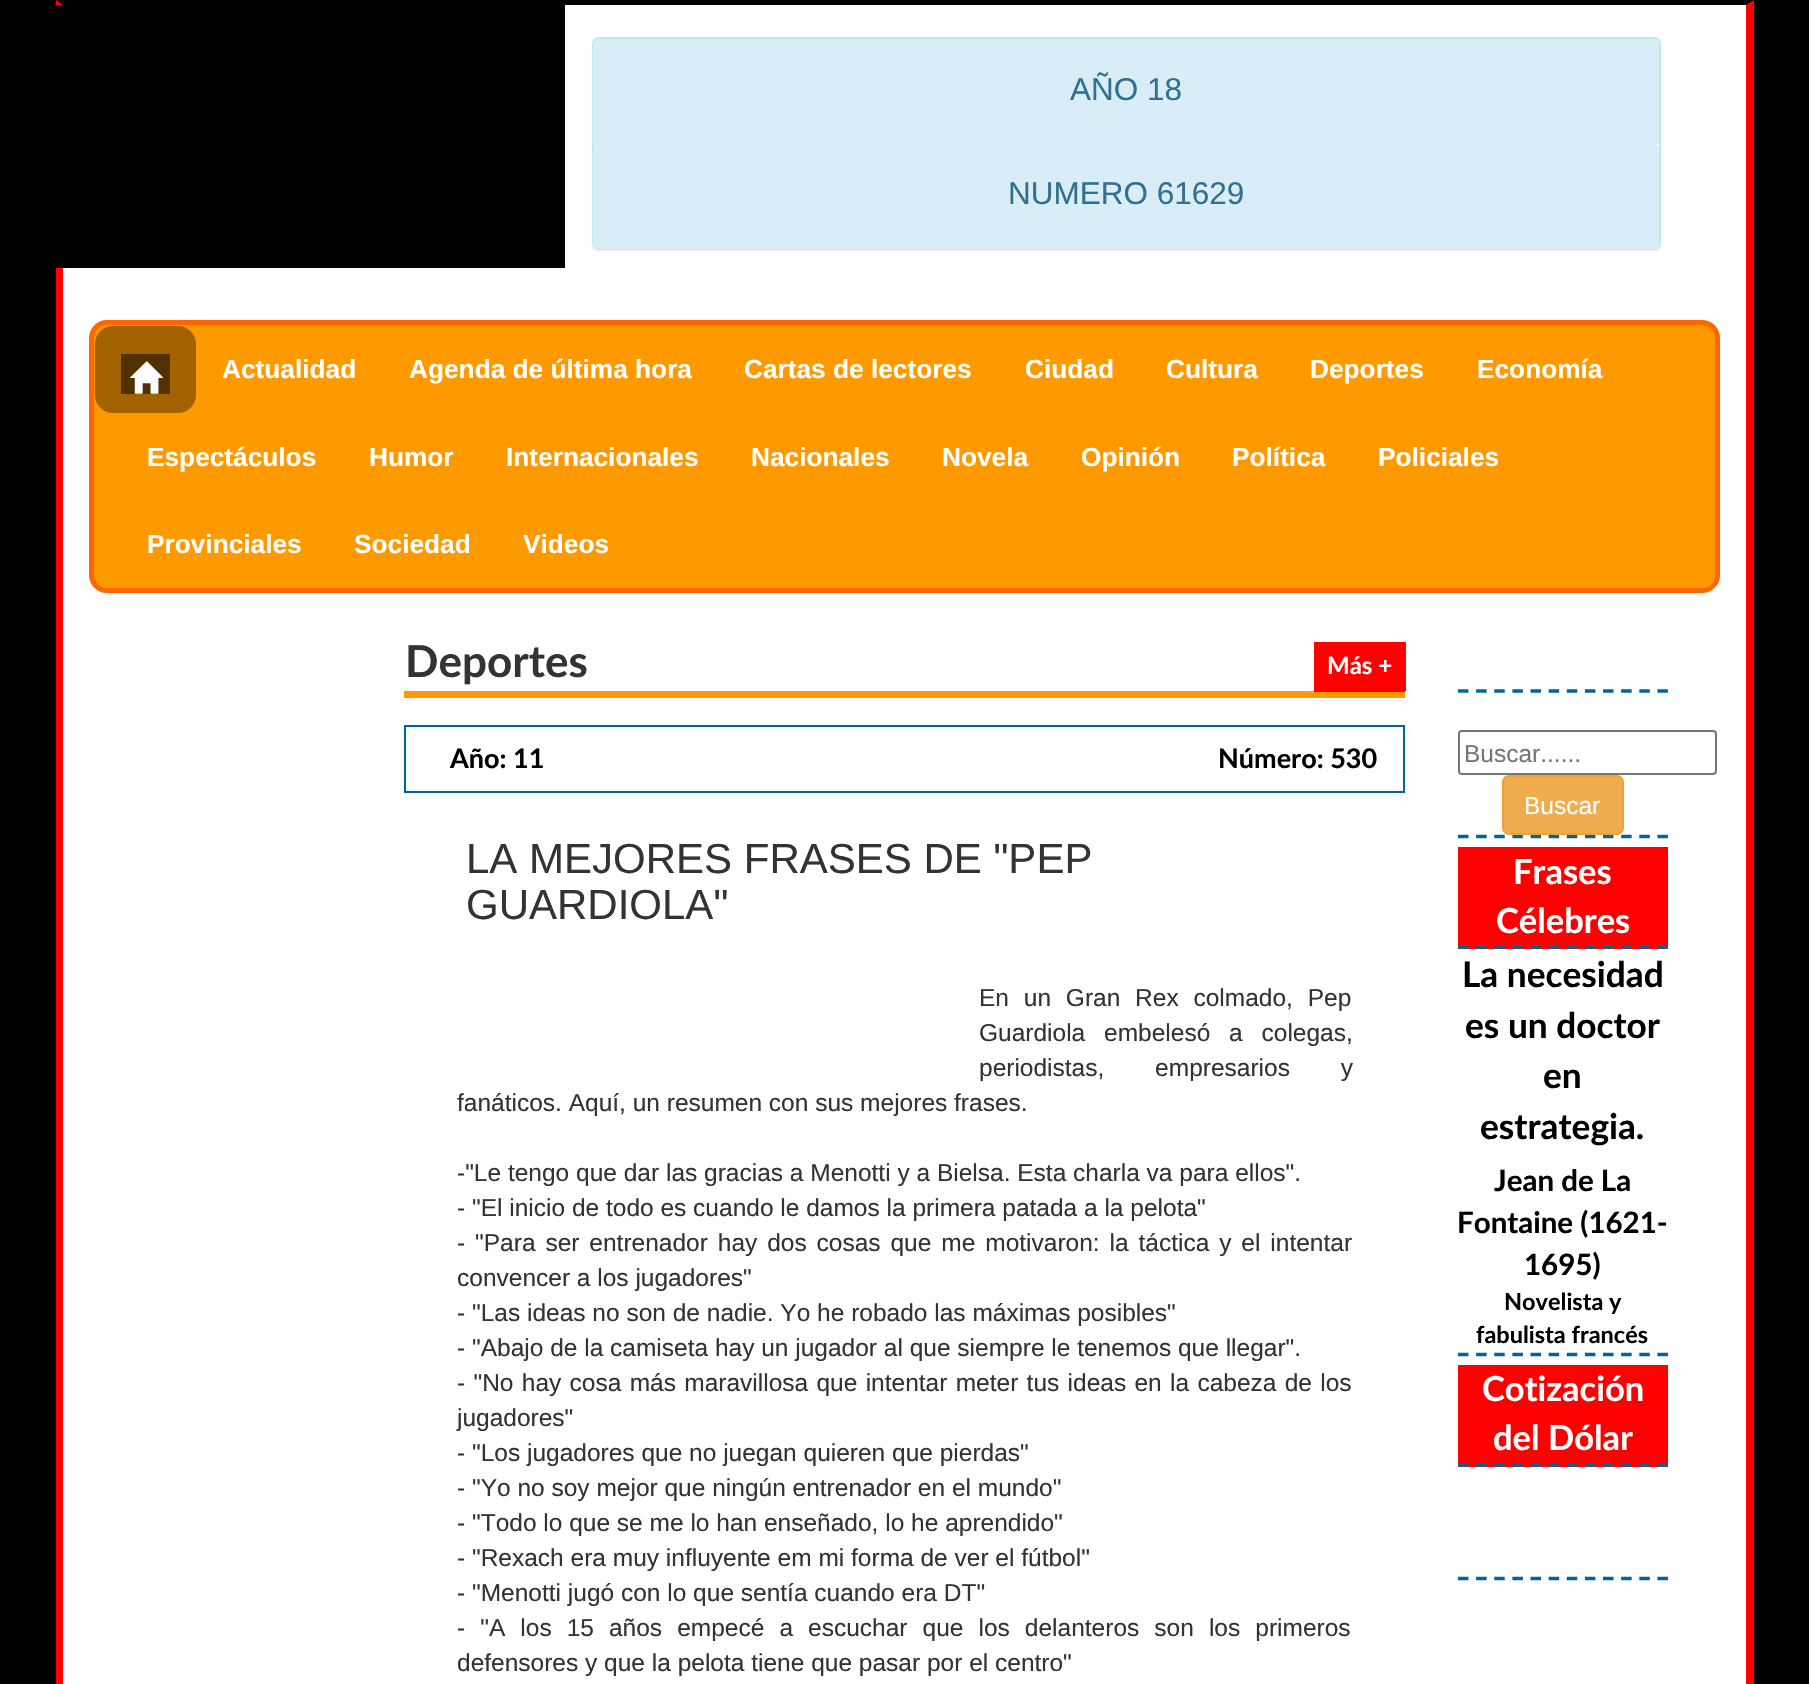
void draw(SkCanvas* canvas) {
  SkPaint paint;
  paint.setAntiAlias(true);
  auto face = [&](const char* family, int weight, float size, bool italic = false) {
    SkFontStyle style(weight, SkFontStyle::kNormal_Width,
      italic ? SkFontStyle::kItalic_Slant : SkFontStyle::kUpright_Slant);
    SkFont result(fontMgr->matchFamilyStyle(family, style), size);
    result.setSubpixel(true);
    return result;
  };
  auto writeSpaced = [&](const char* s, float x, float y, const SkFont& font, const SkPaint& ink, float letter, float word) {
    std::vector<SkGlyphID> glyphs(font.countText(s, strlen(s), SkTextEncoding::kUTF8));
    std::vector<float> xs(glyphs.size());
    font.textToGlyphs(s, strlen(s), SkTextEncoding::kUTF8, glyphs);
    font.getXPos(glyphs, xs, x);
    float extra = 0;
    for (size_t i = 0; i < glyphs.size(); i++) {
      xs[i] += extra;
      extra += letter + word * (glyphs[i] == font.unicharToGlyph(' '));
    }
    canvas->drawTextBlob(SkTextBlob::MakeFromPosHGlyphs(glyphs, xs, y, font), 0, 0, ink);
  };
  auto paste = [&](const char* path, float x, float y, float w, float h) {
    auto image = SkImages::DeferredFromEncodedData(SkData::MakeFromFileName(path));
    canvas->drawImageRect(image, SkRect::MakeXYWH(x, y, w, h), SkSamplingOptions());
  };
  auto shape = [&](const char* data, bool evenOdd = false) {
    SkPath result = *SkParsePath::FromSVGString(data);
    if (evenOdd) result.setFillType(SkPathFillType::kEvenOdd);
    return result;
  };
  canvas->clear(0xff000000);
  paint.setColor(0xffffffff);
  canvas->drawRect(SkRect::MakeXYWH(63, 5, 1683, 1679), paint);
  paint.setColor(0xffff0000);
  canvas->drawPath(shape("M1754 0V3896L1746 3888V5Z"), paint);
  canvas->drawPath(shape("M56 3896V0L63 5V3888Z"), paint);
  paint.setColor(0xff000000);
  canvas->drawRect(SkRect::MakeXYWH(56, 5, 509, 263), paint);
  paint.setColor(0x0d000000);
  paint.setMaskFilter(SkMaskFilter::MakeBlur(kNormal_SkBlurStyle, 1));
  canvas->drawRoundRect(SkRect::MakeXYWH(592, 39, 1069, 213), 7, 7, paint);
  paint.setMaskFilter(nullptr);
  paint.setColor(0xffffffff);
  canvas->drawRoundRect(SkRect::MakeXYWH(593, 38, 1067, 211), 6, 6, paint);
  paint.setStroke(true);
  paint.setStrokeWidth(2);
  paint.setColor(0xffbce8f1);
  canvas->drawRoundRect(SkRect::MakeXYWH(593, 38, 1067, 211), 6, 6, paint);
  paint.setStroke(false);
  paint.setColor(0xffd9edf7);
  canvas->drawPath(shape("M598 39H1654C1657 39 1659 41 1659 44V144H593V44C593 41 595 39 598 39Z"), paint);
  canvas->drawPath(shape("M598 144H1654C1657 144 1659 146 1659 149V249H593V149C593 146 595 144 598 144Z"), paint);
  paint.setColor(0xffff9900);
  canvas->drawRoundRect(SkRect::MakeXYWH(91.5f, 322.5f, 1626, 268), 15.5f, 15.5f, paint);
  paint.setStroke(true);
  paint.setStrokeWidth(5);
  paint.setColor(0xffff6600);
  canvas->drawRoundRect(SkRect::MakeXYWH(91.5f, 322.5f, 1626, 268), 15.5f, 15.5f, paint);
  paint.setStroke(false);
  paint.setColor(0xffa36200);
  canvas->drawRoundRect(SkRect::MakeXYWH(95, 326, 101, 87), 18, 18, paint);
  paint.setColor(0xff523100);
  canvas->drawRect(SkRect::MakeXYWH(121, 354, 49, 40), paint);
  paste("img/1.png", 130, 361, 34, 33);
  {
    const struct { float x, y, w, h; SkColor color; } items[] = {
      {404, 691, 1001, 7, 0xffff9900},
      {1316, 644, 88, 44, 0xffff0000},
      {1314, 642, 91, 2, 0xffff0000},
      {1404, 642, 2, 49, 0xffff0000},
      {1314, 688, 91, 4, 0xffff0000},
      {1314, 642, 2, 49, 0xffff0000},
    };
    for (auto [x, y, w, h, color] : items) {
      paint.setColor(color);
      canvas->drawRect(SkRect::MakeXYWH(x, y, w, h), paint);
    }
  }
  paint.setStroke(true);
  paint.setStrokeWidth(2);
  paint.setColor(0xff006699);
  canvas->drawRect(SkRect::MakeXYWH(405, 726, 999, 66), paint);
  paint.setStrokeWidth(3.5f);
  paint.setPathEffect(SkDashPathEffect::Make({{10.5f, 7.63f}}, 0));
  canvas->drawPath(shape("M1458 691H1668"), paint);
  paint.setPathEffect(nullptr);
  paint.setPathEffect(SkDashPathEffect::Make({{10.5f, 7.63f}}, 0));
  canvas->drawPath(shape("M1458 836.5H1668"), paint);
  paint.setPathEffect(nullptr);
  paint.setStrokeWidth(2);
  paint.setColor(0xff767676);
  canvas->drawRoundRect(SkRect::MakeXYWH(1459, 731, 257, 43), 3, 3, paint);
  paint.setStroke(false);
  paint.setColor(0xfff0ad4e);
  canvas->drawRoundRect(SkRect::MakeXYWH(1503, 776, 120, 58), 6, 6, paint);
  paint.setStroke(true);
  paint.setColor(0xffeea236);
  canvas->drawRoundRect(SkRect::MakeXYWH(1503, 776, 120, 58), 6, 6, paint);
  paint.setStrokeWidth(3.5f);
  paint.setColor(0xff006699);
  paint.setPathEffect(SkDashPathEffect::Make({{10.5f, 7.63f}}, 0));
  canvas->drawPath(shape("M1458 1354.5H1668"), paint);
  paint.setPathEffect(nullptr);
  paint.setStroke(false);
  paint.setColor(0xffff0000);
  canvas->drawRect(SkRect::MakeXYWH(1458, 847, 210, 102), paint);
  paint.setStroke(true);
  paint.setColor(0xff006699);
  paint.setPathEffect(SkDashPathEffect::Make({{10.5f, 7.63f}}, 0));
  canvas->drawPath(shape("M1458 947H1668"), paint);
  paint.setPathEffect(nullptr);
  paint.setStroke(false);
  paint.setColor(0xffff0000);
  canvas->drawRect(SkRect::MakeXYWH(1458, 1365, 210, 102), paint);
  paint.setStroke(true);
  paint.setColor(0xff006699);
  paint.setPathEffect(SkDashPathEffect::Make({{10.5f, 7.63f}}, 0));
  canvas->drawPath(shape("M1458 1465H1668"), paint);
  paint.setPathEffect(nullptr);
  paint.setPathEffect(SkDashPathEffect::Make({{10.5f, 7.63f}}, 0));
  canvas->drawPath(shape("M1458 1578.5H1668"), paint);
  paint.setPathEffect(nullptr);
  auto f0 = face("Liberation Sans", 400, 31.5f);
  paint.setStroke(false);
  paint.setColor(0xff31708f);
  canvas->drawString("AÑO 18", 1070, 100, f0, paint);
  canvas->drawString("NUMERO 61629", 1008, 204, f0, paint);
  auto f1 = face("Liberation Sans", 700, 26.25f);
  paint.setColor(0xffffffff);
  {
    const struct { const char* s; float x, y; } items[] = {
      {"Actualidad", 222, 378},
      {"Agenda de última hora", 409, 378},
      {"Cartas de lectores", 744, 378},
      {"Ciudad", 1025, 378},
      {"Cultura", 1166, 378},
      {"Deportes", 1310, 378},
      {"Economía", 1477, 378},
      {"Espectáculos", 147, 466},
      {"Humor", 369, 466},
      {"Internacionales", 506, 466},
      {"Nacionales", 751, 466},
      {"Novela", 942, 466},
      {"Opinión", 1081, 466},
      {"Política", 1232, 466},
      {"Policiales", 1378, 466},
      {"Provinciales", 147, 553},
      {"Sociedad", 354, 553},
      {"Videos", 523, 553},
    };
    for (auto [s, x, y] : items) {
      canvas->drawString(s, x, y, f1, paint);
    }
  }
  auto f2 = face("Lato", 700, 44);
  paint.setColor(0xff333333);
  canvas->drawString("Deportes", 405, 677, f2, paint);
  auto f3 = face("Lato", 700, 24);
  paint.setColor(0xffffffff);
  canvas->drawString("Más +", 1327, 674, f3, paint);
  auto f4 = face("Lato", 700, 27);
  paint.setColor(0xff000000);
  canvas->drawString("Año: 11", 450, 768, f4, paint);
  canvas->drawString("Número: 530", 1218, 768, f4, paint);
  auto f5 = face("Liberation Sans", 400, 42);
  paint.setColor(0xff333333);
  canvas->drawString("LA MEJORES FRASES DE \"PEP", 466, 873, f5, paint);
  canvas->drawString("GUARDIOLA\"", 466, 919, f5, paint);
  auto f6 = face("Liberation Sans", 400, 24.5f);
  writeSpaced("En un Gran Rex colmado, Pep", 979, 1006, f6, paint, 0, 8);
  writeSpaced("Guardiola embelesó a colegas,", 979, 1041, f6, paint, 0, 12);
  writeSpaced("periodistas, empresarios y", 979, 1076, f6, paint, 0, 44);
  {
    const struct { const char* s; float x, y; } items[] = {
      {"fanáticos. Aquí, un resumen con sus mejores frases.", 457, 1111},
      {"-\"Le tengo que dar las gracias a Menotti y a Bielsa. Esta charla va para ellos\".", 457, 1181},
      {"- \"El inicio de todo es cuando le damos la primera patada a la pelota\"", 457, 1216},
    };
    for (auto [s, x, y] : items) {
      canvas->drawString(s, x, y, f6, paint);
    }
  }
  writeSpaced("- \"Para ser entrenador hay dos cosas que me motivaron: la táctica y el intentar", 457, 1251, f6, paint, 0, 3.1f);
  {
    const struct { const char* s; float x, y; } items[] = {
      {"convencer a los jugadores\"", 457, 1286},
      {"- \"Las ideas no son de nadie. Yo he robado las máximas posibles\"", 457, 1321},
      {"- \"Abajo de la camiseta hay un jugador al que siempre le tenemos que llegar\".", 457, 1356},
    };
    for (auto [s, x, y] : items) {
      canvas->drawString(s, x, y, f6, paint);
    }
  }
  writeSpaced("- \"No hay cosa más maravillosa que intentar meter tus ideas en la cabeza de los", 457, 1391, f6, paint, 0, 1.5f);
  {
    const struct { const char* s; float x, y; } items[] = {
      {"jugadores\"", 457, 1426},
      {"- \"Los jugadores que no juegan quieren que pierdas\"", 457, 1461},
      {"- \"Yo no soy mejor que ningún entrenador en el mundo\"", 457, 1496},
      {"- \"Todo lo que se me lo han enseñado, lo he aprendido\"", 457, 1531},
      {"- \"Rexach era muy influyente em mi forma de ver el fútbol\"", 457, 1566},
      {"- \"Menotti jugó con lo que sentía cuando era DT\"", 457, 1601},
    };
    for (auto [s, x, y] : items) {
      canvas->drawString(s, x, y, f6, paint);
    }
  }
  writeSpaced("- \"A los 15 años empecé a escuchar que los delanteros son los primeros", 457, 1636, f6, paint, 0, 8.25f);
  canvas->drawString("defensores y que la pelota tiene que pasar por el centro\"", 457, 1671, f6, paint);
  paint.setColor(0xff757575);
  canvas->drawString("Buscar......", 1464, 762, f6, paint);
  paint.setColor(0xffffffff);
  canvas->drawString("Buscar", 1524, 814, f6, paint);
  auto f7 = face("Lato", 700, 34.5f);
  canvas->drawString("Frases", 1513, 884, f7, paint);
  canvas->drawString("Célebres", 1496, 933, f7, paint);
  auto f8 = face("Lato", 700, 35.25f);
  paint.setColor(0xff000000);
  {
    const struct { const char* s; float x, y; } items[] = {
      {"La necesidad", 1462, 987},
      {"es un doctor", 1465, 1038},
      {"en", 1543, 1088},
      {"estrategia.", 1480, 1139},
    };
    for (auto [s, x, y] : items) {
      canvas->drawString(s, x, y, f8, paint);
    }
  }
  auto f9 = face("Lato", 700, 29.5f);
  {
    const struct { const char* s; float x, y; } items[] = {
      {"Jean de La", 1494, 1191},
      {"Fontaine (1621-", 1457, 1233},
      {"1695)", 1524, 1275},
    };
    for (auto [s, x, y] : items) {
      canvas->drawString(s, x, y, f9, paint);
    }
  }
  auto f10 = face("Lato", 700, 23.5f);
  canvas->drawString("Novelista y", 1504, 1310, f10, paint);
  canvas->drawString("fabulista francés", 1476, 1343, f10, paint);
  paint.setColor(0xffffffff);
  canvas->drawString("Cotización", 1482, 1401, f7, paint);
  canvas->drawString("del Dólar", 1493, 1450, f7, paint);
}
